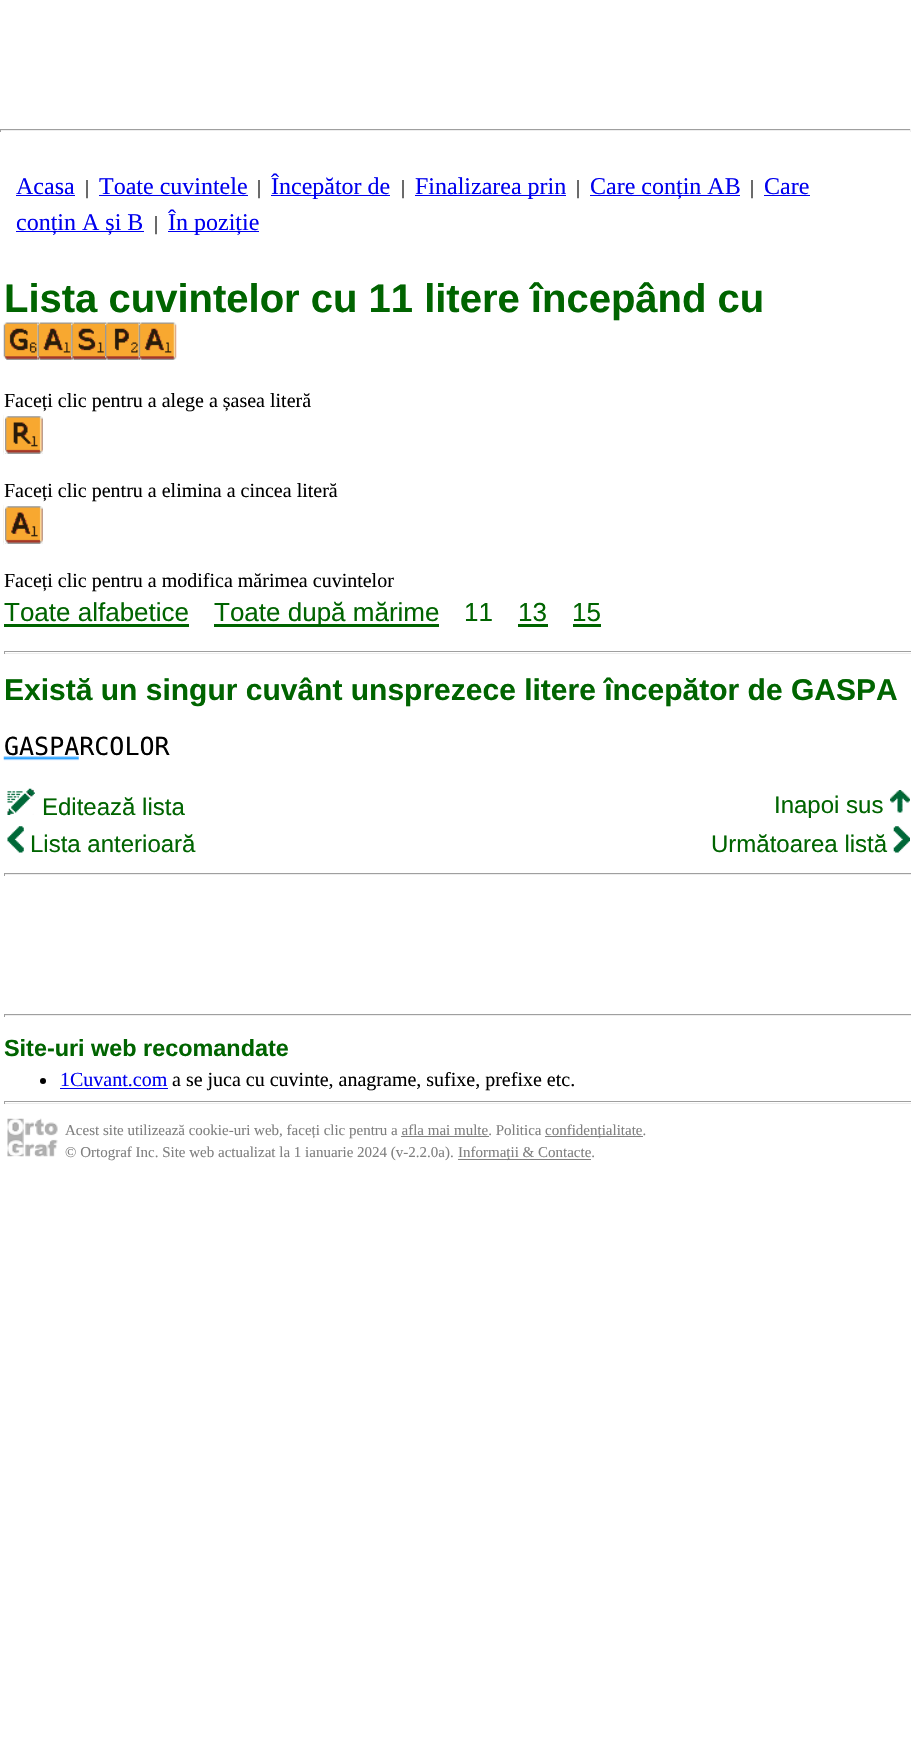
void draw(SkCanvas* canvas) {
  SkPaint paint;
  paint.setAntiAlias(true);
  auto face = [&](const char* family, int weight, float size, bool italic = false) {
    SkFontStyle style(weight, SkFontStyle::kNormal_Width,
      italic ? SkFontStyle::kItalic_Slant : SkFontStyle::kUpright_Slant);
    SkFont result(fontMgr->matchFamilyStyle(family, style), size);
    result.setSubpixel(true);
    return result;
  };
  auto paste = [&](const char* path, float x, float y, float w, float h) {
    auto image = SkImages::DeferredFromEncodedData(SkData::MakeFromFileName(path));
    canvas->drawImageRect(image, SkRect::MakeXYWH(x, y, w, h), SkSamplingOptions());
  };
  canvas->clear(0xffffffff);
  {
    const struct { float x, y, w, h; SkColor color; } items[] = {
      {0, 129, 911, 1, 0xff9f9f9f},
      {910, 129, 1, 3, 0xffeeeeee},
      {0, 130, 911, 1, 0xffeeeeee},
      {0, 129, 1, 3, 0xff9f9f9f},
      {16, 195, 59, 1, 0xff0000ee},
      {99, 195, 149, 1, 0xff0000ee},
      {271, 195, 119, 1, 0xff0000ee},
      {415, 195, 151, 1, 0xff0000ee},
      {590, 195, 150, 1, 0xff0000ee},
      {764, 195, 46, 1, 0xff0000ee},
      {16, 231, 128, 1, 0xff0000ee},
      {168, 231, 91, 1, 0xff0000ee},
    };
    for (auto [x, y, w, h, color] : items) {
      paint.setColor(color);
      canvas->drawRect(SkRect::MakeXYWH(x, y, w, h), paint);
    }
  }
  paste("img/1.png", 3, 322, 35, 38);
  paste("img/2.png", 37, 322, 35, 38);
  paste("img/3.png", 71, 322, 34, 38);
  paste("img/4.png", 105, 322, 34, 38);
  paste("img/5.png", 138, 322, 39, 38);
  paste("img/6.png", 3, 415, 40, 40);
  paint.setStroke(true);
  paint.setStrokeWidth(1);
  paint.setColor(0xffffffff);
  canvas->drawRect(SkRect::MakeXYWH(4.5f, 415.5f, 39, 39), paint);
  paste("img/7.png", 3, 505, 40, 40);
  canvas->drawRect(SkRect::MakeXYWH(4.5f, 505.5f, 39, 39), paint);
  paint.setStroke(false);
  {
    const struct { float x, y, w, h; SkColor color; } items[] = {
      {4, 624, 185, 3, 0xff006400},
      {214, 624, 225, 3, 0xff006400},
      {518, 624, 30, 3, 0xff006400},
      {573, 624, 28, 3, 0xff006400},
      {4, 651, 907, 1, 0xff9f9f9f},
      {4, 653, 907, 1, 0xffeeeeee},
      {4, 651, 1, 3, 0xff9f9f9f},
    };
    for (auto [x, y, w, h, color] : items) {
      paint.setColor(color);
      canvas->drawRect(SkRect::MakeXYWH(x, y, w, h), paint);
    }
  }
  paste("img/8.png", 3, 756, 76, 5);
  paste("img/9.png", 7, 788, 28, 27);
  paste("img/10.png", 890, 790, 20, 23);
  paste("img/11.png", 7, 826, 17, 27);
  paste("img/12.png", 893, 826, 17, 27);
  {
    const struct { float x, y, w, h; SkColor color; } items[] = {
      {4, 873, 907, 1, 0xff9f9f9f},
      {4, 874, 907, 1, 0xffeeeeee},
      {4, 873, 1, 3, 0xff9f9f9f},
      {4, 1014, 907, 1, 0xff9f9f9f},
      {4, 1015, 907, 1, 0xffeeeeee},
      {4, 1014, 1, 3, 0xff9f9f9f},
    };
    for (auto [x, y, w, h, color] : items) {
      paint.setColor(color);
      canvas->drawRect(SkRect::MakeXYWH(x, y, w, h), paint);
    }
  }
  paint.setColor(0xff000000);
  canvas->drawCircle(43, 1081, 3, paint);
  {
    const struct { float x, y, w, h; SkColor color; } items[] = {
      {60, 1088, 108, 1, 0xff0000ee},
      {4, 1101, 907, 1, 0xff9f9f9f},
      {4, 1103, 907, 1, 0xffeeeeee},
      {4, 1101, 1, 3, 0xff9f9f9f},
    };
    for (auto [x, y, w, h, color] : items) {
      paint.setColor(color);
      canvas->drawRect(SkRect::MakeXYWH(x, y, w, h), paint);
    }
  }
  paste("img/13.png", 7, 1118, 51, 39);
  {
    const struct { float x, y, w, h; SkColor color; } items[] = {
      {401, 1136, 88, 1, 0xff808080},
      {545, 1136, 98, 1, 0xff808080},
      {458, 1159, 133, 1, 0xff808080},
    };
    for (auto [x, y, w, h, color] : items) {
      paint.setColor(color);
      canvas->drawRect(SkRect::MakeXYWH(x, y, w, h), paint);
    }
  }
  auto f0 = face("Liberation Serif", 400, 24);
  paint.setColor(0xff0000ee);
  canvas->drawString("Acasa", 16, 194, f0, paint);
  auto f1 = face("Liberation Serif", 400, 20);
  paint.setColor(0xff000000);
  canvas->drawString("|", 85, 194, f1, paint);
  paint.setColor(0xff0000ee);
  canvas->drawString("Toate cuvintele", 99, 194, f0, paint);
  paint.setColor(0xff000000);
  canvas->drawString("|", 257, 194, f1, paint);
  paint.setColor(0xff0000ee);
  canvas->drawString("Începător de", 271, 194, f0, paint);
  paint.setColor(0xff000000);
  canvas->drawString("|", 401, 194, f1, paint);
  paint.setColor(0xff0000ee);
  canvas->drawString("Finalizarea prin", 415, 194, f0, paint);
  paint.setColor(0xff000000);
  canvas->drawString("|", 576, 194, f1, paint);
  paint.setColor(0xff0000ee);
  canvas->drawString("Care conțin AB", 590, 194, f0, paint);
  paint.setColor(0xff000000);
  canvas->drawString("|", 750, 194, f1, paint);
  paint.setColor(0xff0000ee);
  canvas->drawString("Care", 764, 194, f0, paint);
  canvas->drawString("conțin A și B", 16, 230, f0, paint);
  paint.setColor(0xff000000);
  canvas->drawString("|", 154, 230, f1, paint);
  paint.setColor(0xff0000ee);
  canvas->drawString("În poziție", 168, 230, f0, paint);
  auto f2 = face("Liberation Sans", 700, 40);
  paint.setColor(0xff006400);
  canvas->drawString("Lista cuvintelor cu 11 litere începând cu", 4, 312, f2, paint);
  paint.setColor(0xff000000);
  {
    const struct { const char* s; float x, y; } items[] = {
      {"Faceți clic pentru a alege a șasea literă", 4, 407},
      {"Faceți clic pentru a elimina a cincea literă", 4, 497},
      {"Faceți clic pentru a modifica mărimea cuvintelor", 4, 587},
    };
    for (auto [s, x, y] : items) {
      canvas->drawString(s, x, y, f1, paint);
    }
  }
  auto f3 = face("Liberation Sans", 400, 26);
  paint.setColor(0xff006400);
  {
    const struct { const char* s; float x, y; } items[] = {
      {"Toate alfabetice", 4, 621},
      {"Toate după mărime", 214, 621},
      {"11", 464, 621},
      {"13", 518, 621},
      {"15", 572, 621},
    };
    for (auto [s, x, y] : items) {
      canvas->drawString(s, x, y, f3, paint);
    }
  }
  auto f4 = face("Liberation Sans", 700, 30);
  canvas->drawString("Există un singur cuvânt unsprezece litere începător de GASPA", 4, 700, f4, paint);
  auto f5 = face("DejaVu Sans Mono", 400, 25);
  paint.setColor(0xff000000);
  canvas->drawString("GASPARCOLOR", 4, 755, f5, paint);
  auto f6 = face("Liberation Sans", 400, 24);
  paint.setColor(0xff006400);
  {
    const struct { const char* s; float x, y; } items[] = {
      {"Editează lista", 42, 815},
      {"Inapoi sus", 774, 813},
      {"Lista anterioară", 30, 852},
      {"Următoarea listă", 711, 852},
    };
    for (auto [s, x, y] : items) {
      canvas->drawString(s, x, y, f6, paint);
    }
  }
  auto f7 = face("Liberation Sans", 700, 23.4f);
  canvas->drawString("Site-uri web recomandate", 4, 1056, f7, paint);
  paint.setColor(0xff0000ee);
  canvas->drawString("1Cuvant.com", 60, 1086, f1, paint);
  paint.setColor(0xff000000);
  canvas->drawString("a se juca cu cuvinte, anagrame, sufixe, prefixe etc.", 172, 1086, f1, paint);
  auto f8 = face("Liberation Serif", 400, 15);
  paint.setColor(0xff808080);
  {
    const struct { const char* s; float x, y; } items[] = {
      {"Acest site utilizează cookie-uri web, faceți clic pentru a afla mai multe. Politica", 65, 1135},
      {"confidențialitate.", 545, 1135},
      {"© Ortograf Inc. Site web actualizat la 1 ianuarie 2024 (v-2.2.0a).", 65, 1157},
      {"Informații & Contacte.", 458, 1157},
    };
    for (auto [s, x, y] : items) {
      canvas->drawString(s, x, y, f8, paint);
    }
  }
}
